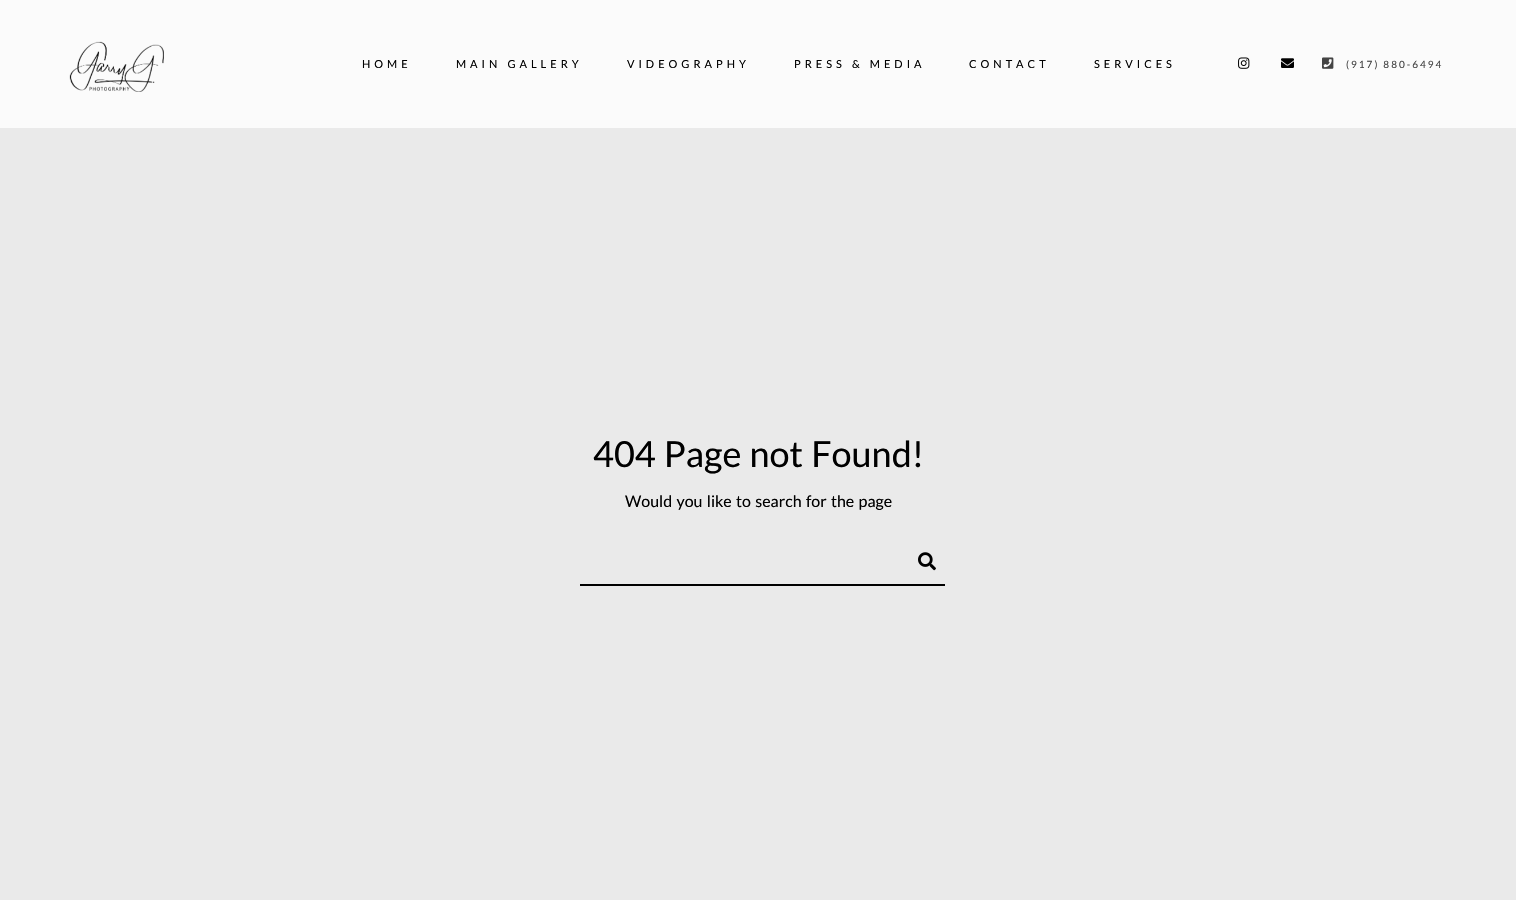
void draw(SkCanvas* canvas) {
  SkPaint paint;
  paint.setAntiAlias(true);
  auto face = [&](const char* family, int weight, float size, bool italic = false) {
    SkFontStyle style(weight, SkFontStyle::kNormal_Width,
      italic ? SkFontStyle::kItalic_Slant : SkFontStyle::kUpright_Slant);
    SkFont result(fontMgr->matchFamilyStyle(family, style), size);
    result.setSubpixel(true);
    return result;
  };
  auto writeSpaced = [&](const char* s, float x, float y, const SkFont& font, const SkPaint& ink, float letter, float word) {
    std::vector<SkGlyphID> glyphs(font.countText(s, strlen(s), SkTextEncoding::kUTF8));
    std::vector<float> xs(glyphs.size());
    font.textToGlyphs(s, strlen(s), SkTextEncoding::kUTF8, glyphs);
    font.getXPos(glyphs, xs, x);
    float extra = 0;
    for (size_t i = 0; i < glyphs.size(); i++) {
      xs[i] += extra;
      extra += letter + word * (glyphs[i] == font.unicharToGlyph(' '));
    }
    canvas->drawTextBlob(SkTextBlob::MakeFromPosHGlyphs(glyphs, xs, y, font), 0, 0, ink);
  };
  auto paste = [&](const char* path, float x, float y, float w, float h) {
    auto image = SkImages::DeferredFromEncodedData(SkData::MakeFromFileName(path));
    canvas->drawImageRect(image, SkRect::MakeXYWH(x, y, w, h), SkSamplingOptions());
  };
  canvas->clear(0xffeaeaea);
  paint.setColor(0xfffbfbfb);
  canvas->drawRect(SkRect::MakeXYWH(0, 0, 1516, 128), paint);
  paste("img/1.png", 69, 41, 95, 51);
  paste("img/2.png", 1238, 57, 12, 12);
  paste("img/3.png", 1281, 58, 13, 10);
  paste("img/4.png", 1322, 57, 12, 12);
  paste("img/5.png", 918, 552, 18, 19);
  paint.setColor(0xff000000);
  canvas->drawRect(SkRect::MakeXYWH(580, 584, 365, 2), paint);
  auto f0 = face("Lato", 400, 11);
  {
    const struct { const char* s; float x, y; } items[] = {
      {"HOME", 362, 68},
      {"MAIN GALLERY", 456, 68},
      {"VIDEOGRAPHY", 627, 68},
      {"PRESS & MEDIA", 794, 68},
      {"CONTACT", 969, 68},
      {"SERVICES", 1094, 68},
    };
    for (auto [s, x, y] : items) {
      writeSpaced(s, x, y, f0, paint, 4, 0);
    }
  }
  auto f1 = face("Lato", 400, 10);
  paint.setColor(0xff444444);
  writeSpaced("(917) 880-6494", 1346, 68, f1, paint, 2, 0);
  auto f2 = face("Lato", 400, 36);
  paint.setColor(0xff000000);
  writeSpaced("404 Page not Found!", 593, 467, f2, paint, 0, 1.25f);
  auto f3 = face("Lato", 400, 16);
  writeSpaced("Would you like to search for the page", 625, 507, f3, paint, 0, 1.25f);
}
